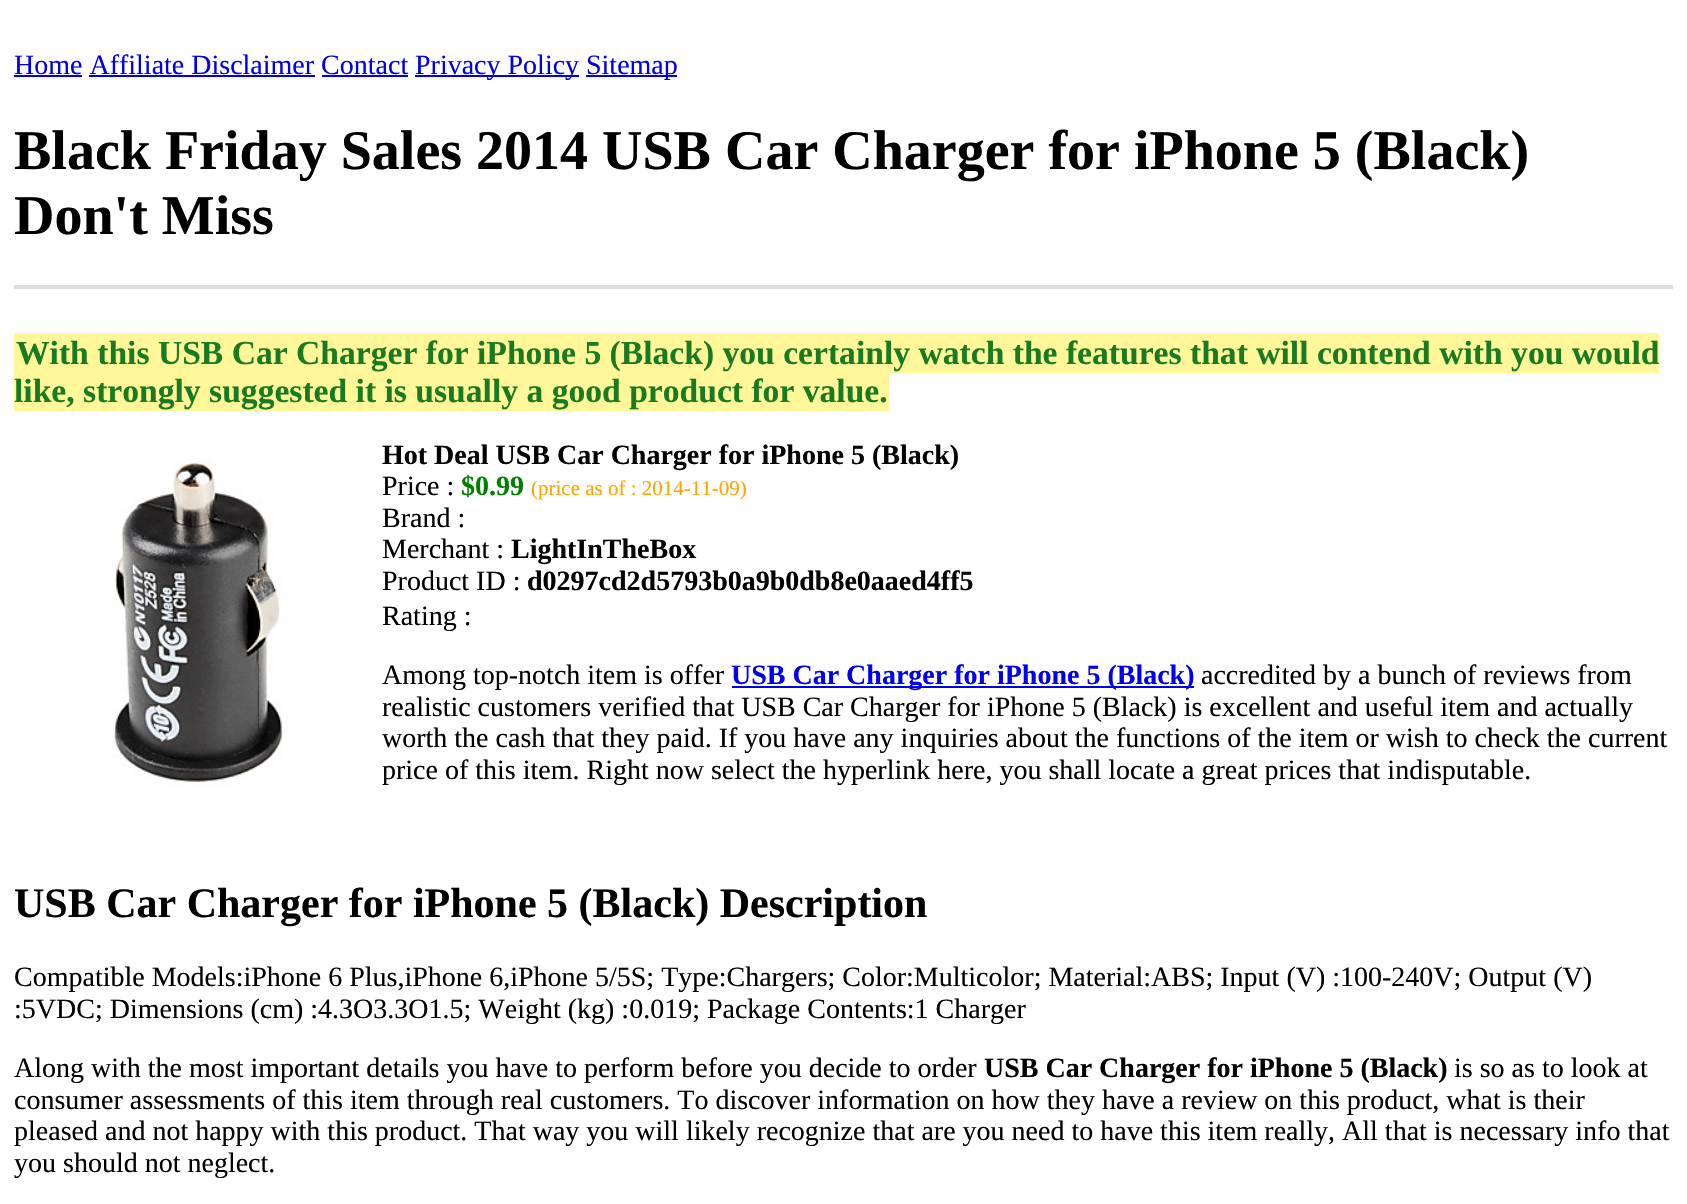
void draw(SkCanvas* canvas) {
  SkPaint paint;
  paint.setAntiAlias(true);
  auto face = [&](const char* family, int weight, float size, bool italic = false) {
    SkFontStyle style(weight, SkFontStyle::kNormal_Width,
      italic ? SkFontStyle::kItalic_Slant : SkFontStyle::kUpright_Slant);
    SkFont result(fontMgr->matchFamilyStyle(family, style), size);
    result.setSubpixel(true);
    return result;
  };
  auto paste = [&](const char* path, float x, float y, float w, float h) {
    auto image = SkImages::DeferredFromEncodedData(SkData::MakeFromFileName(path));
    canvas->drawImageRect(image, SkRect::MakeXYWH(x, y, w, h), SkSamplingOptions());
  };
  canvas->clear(0xffffffff);
  {
    const struct { float x, y, w, h; SkColor color; } items[] = {
      {14, 75, 68, 2, 0xff0000ee},
      {415, 75, 164, 2, 0xff0000ee},
      {586, 75, 91, 2, 0xff0000ee},
      {89, 75, 226, 2, 0xff0000ee},
      {322, 75, 86, 2, 0xff0000ee},
      {14, 285, 1659, 4, 0xffdddddd},
      {14, 333, 1645, 40, 0xfffff799},
      {14, 373, 875, 38, 0xfffff799},
    };
    for (auto [x, y, w, h, color] : items) {
      paint.setColor(color);
      canvas->drawRect(SkRect::MakeXYWH(x, y, w, h), paint);
    }
  }
  paste("img/1.png", 113, 458, 170, 330);
  paint.setColor(0xff0000ee);
  canvas->drawRect(SkRect::MakeXYWH(732, 686, 462, 2), paint);
  auto f0 = face("Liberation Serif", 400, 28);
  {
    const struct { const char* s; float x, y; } items[] = {
      {"Home Affiliate Disclaimer Contact", 14, 74},
      {"Privacy Policy", 415, 74},
      {"Sitemap", 586, 74},
    };
    for (auto [s, x, y] : items) {
      canvas->drawString(s, x, y, f0, paint);
    }
  }
  auto f1 = face("Liberation Serif", 700, 56);
  paint.setColor(0xff000000);
  canvas->drawString("Black Friday Sales 2014 USB Car Charger for iPhone 5 (Black)", 14, 169, f1, paint);
  canvas->drawString("Don't Miss", 14, 234, f1, paint);
  auto f2 = face("Liberation Serif", 700, 33.6f);
  paint.setColor(0xff197a20);
  canvas->drawString("With this USB Car Charger for iPhone 5 (Black) you certainly watch the features that will contend with you would", 16, 364, f2, paint);
  canvas->drawString("like, strongly suggested it is usually a good product for value.", 14, 402, f2, paint);
  auto f3 = face("Liberation Serif", 700, 28);
  paint.setColor(0xff000000);
  canvas->drawString("Hot Deal USB Car Charger for iPhone 5 (Black)", 382, 464, f3, paint);
  canvas->drawString("Price :", 382, 495, f0, paint);
  paint.setColor(0xff008000);
  canvas->drawString("$0.99", 461, 495, f3, paint);
  auto f4 = face("Liberation Serif", 400, 21);
  paint.setColor(0xffffa500);
  canvas->drawString("(price as of : 2014-11-09)", 531, 495, f4, paint);
  paint.setColor(0xff000000);
  canvas->drawString("Brand :", 382, 527, f0, paint);
  canvas->drawString("Merchant :", 382, 558, f0, paint);
  canvas->drawString("LightInTheBox", 511, 558, f3, paint);
  canvas->drawString("Product ID :", 382, 590, f0, paint);
  canvas->drawString("d0297cd2d5793b0a9b0db8e0aaed4ff5", 527, 590, f3, paint);
  canvas->drawString("Rating :", 382, 625, f0, paint);
  canvas->drawString("Among top-notch item is offer", 382, 684, f0, paint);
  paint.setColor(0xff0000ee);
  canvas->drawString("USB Car Charger for iPhone 5 (Black)", 731, 684, f3, paint);
  paint.setColor(0xff000000);
  {
    const struct { const char* s; float x, y; } items[] = {
      {"accredited by a bunch of reviews from", 1201, 684},
      {"realistic customers verified that USB Car Charger for iPhone 5 (Black) is excellent and useful item and actually", 382, 716},
      {"worth the cash that they paid. If you have any inquiries about the functions of the item or wish to check the current", 382, 747},
      {"price of this item. Right now select the hyperlink here, you shall locate a great prices that indisputable.", 382, 779},
    };
    for (auto [s, x, y] : items) {
      canvas->drawString(s, x, y, f0, paint);
    }
  }
  auto f5 = face("Liberation Serif", 700, 42);
  canvas->drawString("USB Car Charger for iPhone 5 (Black) Description", 14, 917, f5, paint);
  {
    const struct { const char* s; float x, y; } items[] = {
      {"Compatible Models:iPhone 6 Plus,iPhone 6,iPhone 5/5S; Type:Chargers; Color:Multicolor; Material:ABS; Input (V) :100-240V; Output (V)", 14, 986},
      {":5VDC; Dimensions (cm) :4.3O3.3O1.5; Weight (kg) :0.019; Package Contents:1 Charger", 14, 1018},
      {"Along with the most important details you have to perform before you decide to order", 14, 1077},
    };
    for (auto [s, x, y] : items) {
      canvas->drawString(s, x, y, f0, paint);
    }
  }
  canvas->drawString("USB Car Charger for iPhone 5 (Black)", 984, 1077, f3, paint);
  {
    const struct { const char* s; float x, y; } items[] = {
      {"is so as to look at", 1454, 1077},
      {"consumer assessments of this item through real customers. To discover information on how they have a review on this product, what is their", 14, 1109},
      {"pleased and not happy with this product. That way you will likely recognize that are you need to have this item really, All that is necessary info that", 14, 1140},
      {"you should not neglect.", 14, 1172},
    };
    for (auto [s, x, y] : items) {
      canvas->drawString(s, x, y, f0, paint);
    }
  }
}
